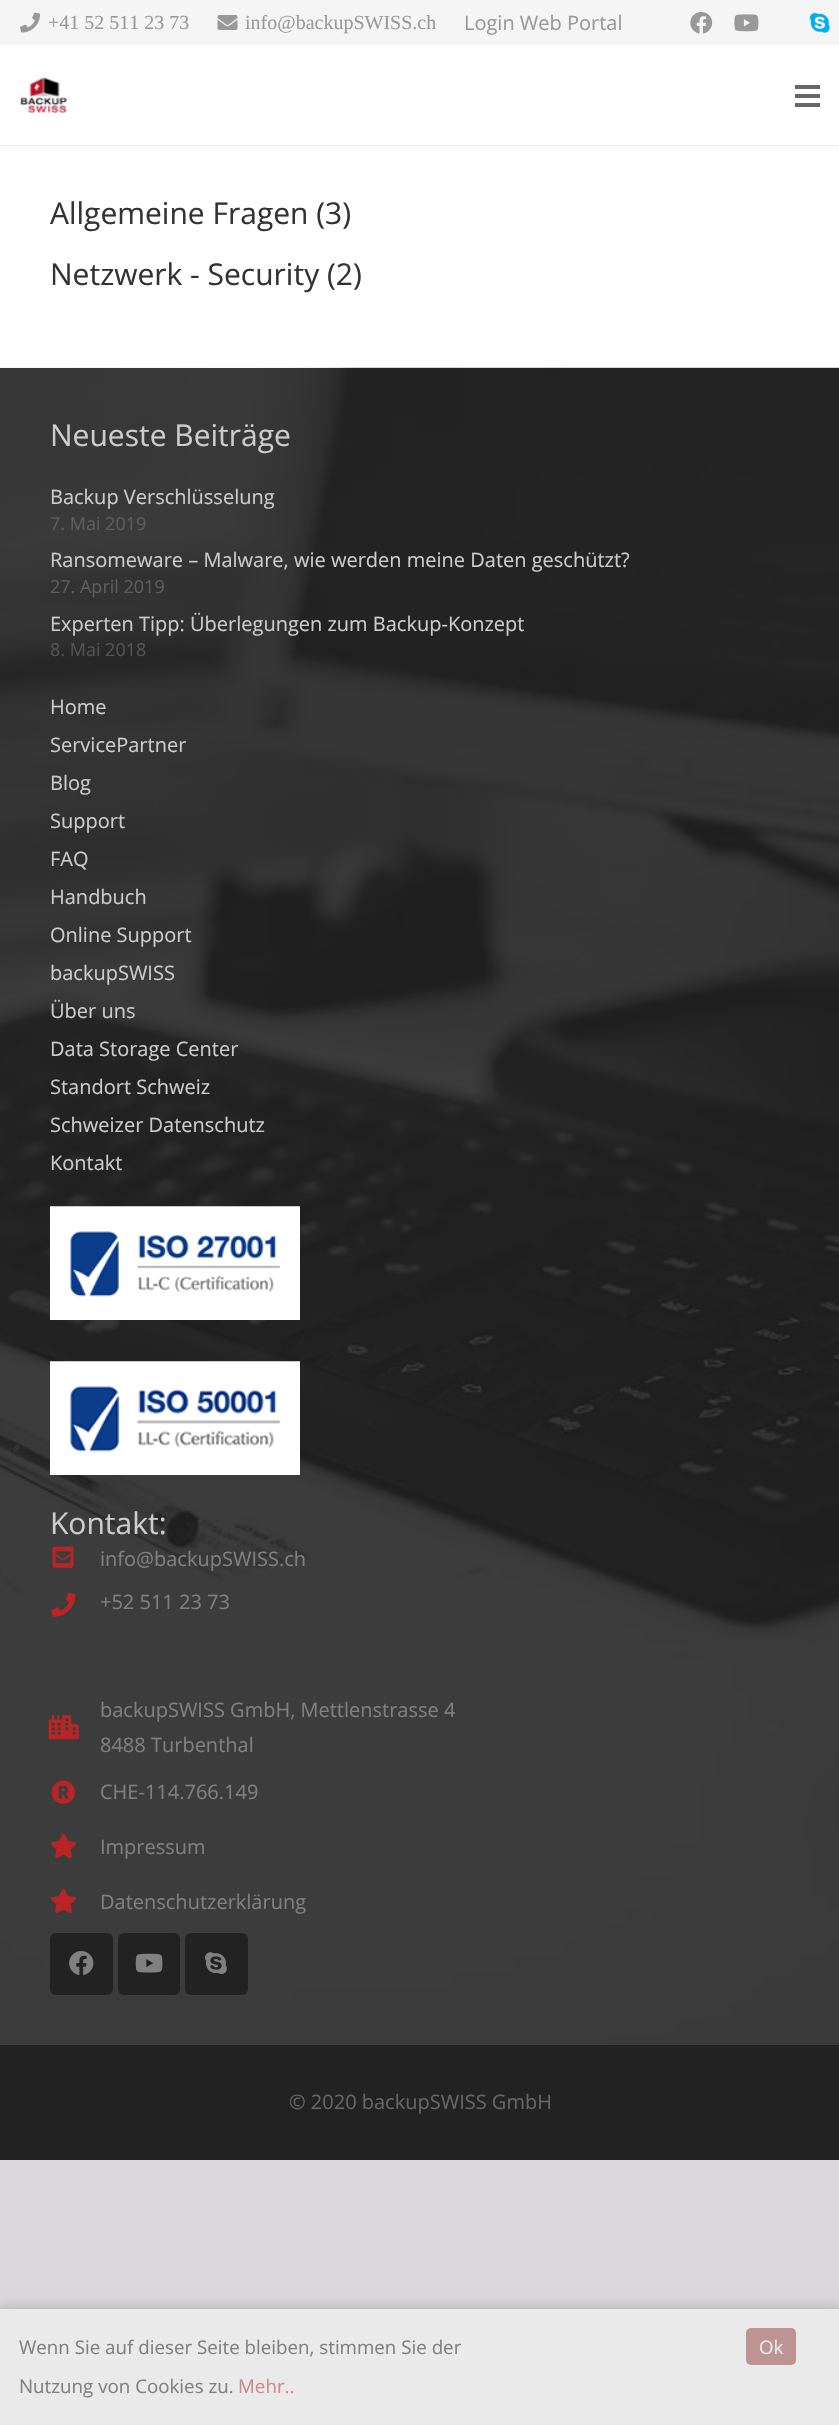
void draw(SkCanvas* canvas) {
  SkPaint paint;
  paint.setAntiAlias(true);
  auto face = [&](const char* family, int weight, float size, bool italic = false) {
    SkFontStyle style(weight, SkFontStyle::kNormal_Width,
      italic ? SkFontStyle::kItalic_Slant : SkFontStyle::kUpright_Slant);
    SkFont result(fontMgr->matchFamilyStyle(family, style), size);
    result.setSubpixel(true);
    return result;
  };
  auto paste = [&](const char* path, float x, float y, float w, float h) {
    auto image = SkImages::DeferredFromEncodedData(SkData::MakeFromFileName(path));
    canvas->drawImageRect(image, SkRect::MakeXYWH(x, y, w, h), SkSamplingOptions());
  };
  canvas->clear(0xffdbd9db);
  paint.setColor(0xffffffff);
  canvas->drawRect(SkRect::MakeXYWH(0, 45, 839, 323), paint);
  paint.setColor(0xfff5f5f5);
  canvas->drawRect(SkRect::MakeXYWH(0, 0, 839, 45), paint);
  paste("img/1.png", 20, 12, 20, 21);
  paste("img/2.png", 217, 15, 21, 15);
  paste("img/3.png", 690, 11, 23, 23);
  paste("img/4.png", 734, 14, 25, 18);
  paste("img/5.png", 810, 13, 20, 20);
  paint.setColor(0xffebebeb);
  canvas->drawRect(SkRect::MakeXYWH(0, 145, 839, 1), paint);
  paste("img/6.png", 20, 77, 48, 36);
  {
    const struct { float x, y, w, h; SkColor color; } items[] = {
      {795, 94, 25, 4, 0xff666666},
      {795, 85, 25, 4, 0xff666666},
      {795, 103, 25, 4, 0xff666666},
    };
    for (auto [x, y, w, h, color] : items) {
      paint.setColor(color);
      canvas->drawRect(SkRect::MakeXYWH(x, y, w, h), paint);
    }
  }
  paste("img/7.png", 0, 367, 839, 1678);
  paste("img/8.png", 50, 1206, 250, 114);
  paste("img/9.png", 50, 1361, 250, 114);
  paste("img/10.png", 52, 1546, 22, 22);
  paste("img/11.png", 51, 1592, 25, 25);
  paste("img/12.png", 48, 1715, 31, 25);
  paste("img/13.png", 51, 1780, 24, 24);
  paste("img/14.png", 51, 1834, 25, 24);
  paste("img/15.png", 51, 1889, 25, 24);
  paint.setColor(0xff222222);
  canvas->drawRoundRect(SkRect::MakeXYWH(50, 1933, 63, 62), 6, 6, paint);
  paste("img/16.png", 69, 1951, 25, 24);
  canvas->drawRoundRect(SkRect::MakeXYWH(118, 1933, 62, 62), 6, 6, paint);
  paste("img/17.png", 135, 1953, 28, 20);
  canvas->drawRoundRect(SkRect::MakeXYWH(185, 1933, 63, 62), 6, 6, paint);
  paste("img/18.png", 205, 1952, 22, 22);
  canvas->drawRect(SkRect::MakeXYWH(0, 2045, 839, 115), paint);
  paint.setColor(0xff919091);
  paint.setMaskFilter(SkMaskFilter::MakeBlur(kNormal_SkBlurStyle, 9.5f));
  canvas->drawRect(SkRect::MakeXYWH(-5, 2313, 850, 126), paint);
  paint.setMaskFilter(nullptr);
  paint.setColor(0xffebeaeb);
  canvas->drawRect(SkRect::MakeXYWH(0, 2309, 839, 116), paint);
  paint.setColor(0xffbe9394);
  canvas->drawRoundRect(SkRect::MakeXYWH(746, 2328, 50, 37), 5, 5, paint);
  auto f0 = face("Liberation Serif", 400, 20);
  paint.setColor(0xff999999);
  canvas->drawString("+41 52 511 23 73", 48, 29, f0, paint);
  canvas->drawString("info@backupSWISS.ch", 245, 29, f0, paint);
  auto f1 = face("Open Sans", 400, 20);
  canvas->drawString("Login Web Portal", 464, 30, f1, paint);
  auto f2 = face("Open Sans", 400, 30);
  paint.setColor(0xff333333);
  canvas->drawString("Allgemeine Fragen (3)", 50, 224, f2, paint);
  canvas->drawString("Netzwerk - Security (2)", 50, 285, f2, paint);
  paint.setColor(0xffcccccc);
  canvas->drawString("Neueste Beiträge", 50, 446, f2, paint);
  canvas->drawString("Backup Verschlüsselung", 50, 504, f1, paint);
  auto f3 = face("Open Sans", 400, 18);
  paint.setColor(0xff5d5d5d);
  canvas->drawString("7. Mai 2019", 50, 530, f3, paint);
  paint.setColor(0xffcccccc);
  canvas->drawString("Ransomeware – Malware, wie werden meine Daten geschützt?", 50, 567, f1, paint);
  paint.setColor(0xff5d5d5d);
  canvas->drawString("27. April 2019", 50, 593, f3, paint);
  paint.setColor(0xffcccccc);
  canvas->drawString("Experten Tipp: Überlegungen zum Backup-Konzept", 50, 631, f1, paint);
  paint.setColor(0xff545454);
  canvas->drawString("8. Mai 2018", 50, 656, f3, paint);
  paint.setColor(0xffcccccc);
  {
    const struct { const char* s; float x, y; } items[] = {
      {"Home", 50, 714},
      {"ServicePartner", 50, 752},
      {"Blog", 50, 790},
      {"Support", 50, 828},
      {"FAQ", 50, 866},
      {"Handbuch", 50, 904},
      {"Online Support", 50, 942},
      {"backupSWISS", 50, 980},
      {"Über uns", 50, 1018},
      {"Data Storage Center", 50, 1056},
      {"Standort Schweiz", 50, 1094},
      {"Schweizer Datenschutz", 50, 1132},
      {"Kontakt", 50, 1170},
    };
    for (auto [s, x, y] : items) {
      canvas->drawString(s, x, y, f1, paint);
    }
  }
  canvas->drawString("Kontakt:", 50, 1534, f2, paint);
  paint.setColor(0xff808080);
  {
    const struct { const char* s; float x, y; } items[] = {
      {"info@backupSWISS.ch", 100, 1566},
      {"+52 511 23 73", 100, 1609},
      {"backupSWISS GmbH, Mettlenstrasse 4", 100, 1717},
      {"8488 Turbenthal", 100, 1752},
      {"CHE-114.766.149", 100, 1799},
      {"Impressum", 100, 1854},
      {"Datenschutzerklärung", 100, 1909},
    };
    for (auto [s, x, y] : items) {
      canvas->drawString(s, x, y, f1, paint);
    }
  }
  paint.setColor(0xff666666);
  canvas->drawString("© 2020 backupSWISS GmbH", 289, 2109, f1, paint);
  auto f4 = face("Open Sans", 400, 18.75f);
  paint.setColor(0xff808080);
  canvas->drawString("Wenn Sie auf dieser Seite bleiben, stimmen Sie der", 19, 2354, f4, paint);
  canvas->drawString("Nutzung von Cookies zu.", 19, 2393, f4, paint);
  paint.setColor(0xffcd8a8b);
  canvas->drawString("Mehr..", 238, 2393, f4, paint);
  paint.setColor(0xffebeaeb);
  canvas->drawString("Ok", 759, 2354, f4, paint);
}
